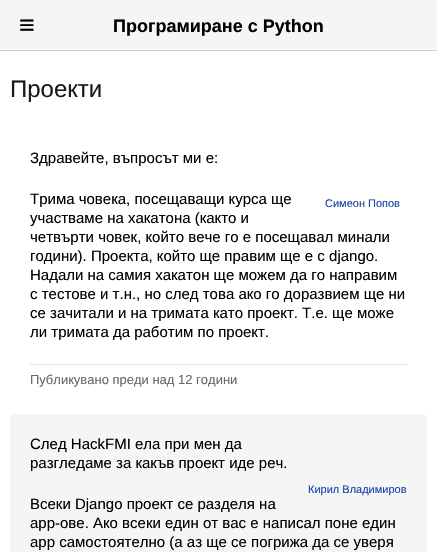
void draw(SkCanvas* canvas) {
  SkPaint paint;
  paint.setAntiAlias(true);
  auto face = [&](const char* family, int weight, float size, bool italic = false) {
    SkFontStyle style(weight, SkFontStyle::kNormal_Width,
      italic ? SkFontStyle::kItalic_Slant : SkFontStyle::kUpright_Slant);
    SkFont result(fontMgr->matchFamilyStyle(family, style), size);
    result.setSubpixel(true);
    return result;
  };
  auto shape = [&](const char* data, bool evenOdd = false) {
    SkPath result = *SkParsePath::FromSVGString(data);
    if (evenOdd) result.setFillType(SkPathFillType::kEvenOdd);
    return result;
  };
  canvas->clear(0xffffffff);
  {
    const struct { float x, y, w, h; SkColor color; } items[] = {
      {0, 50, 437, 1, 0xffc4cccc},
      {0, 0, 437, 49, 0xfff5f5f5},
      {30, 364, 377, 1, 0xffdfe4e4},
    };
    for (auto [x, y, w, h, color] : items) {
      paint.setColor(color);
      canvas->drawRect(SkRect::MakeXYWH(x, y, w, h), paint);
    }
  }
  paint.setColor(0xfff5f5f5);
  canvas->drawPath(shape("M15 414H422C425 414 427 416 427 419V552H10V419C10 416 12 414 15 414Z"), paint);
  auto f0 = face("Liberation Sans", 400, 27);
  paint.setColor(0xff000000);
  canvas->drawString("≡", 19, 34, f0, paint);
  auto f1 = face("Liberation Sans", 700, 18);
  canvas->drawString("Програмиране с Python", 113, 32, f1, paint);
  auto f2 = face("Liberation Sans", 400, 24);
  paint.setColor(0xff1a1a1a);
  canvas->drawString("Проекти", 10, 97, f2, paint);
  auto f3 = face("Liberation Sans", 400, 15);
  paint.setColor(0xff000000);
  {
    const struct { const char* s; float x, y; } items[] = {
      {"Здравейте, въпросът ми е:", 30, 163},
      {"Трима човека, посещаващи курса ще", 30, 204},
      {"участваме на хакатона (както и", 30, 223},
      {"четвърти човек, който вече го е посещавал минали", 30, 242},
      {"години). Проекта, който ще правим ще е с django.", 30, 261},
      {"Надали на самия хакатон ще можем да го направим", 30, 280},
      {"с тестове и т.н., но след това ако го доразвием ще ни", 30, 299},
      {"се зачитали и на тримата като проект. Т.е. ще може", 30, 318},
      {"ли тримата да работим по проект.", 30, 337},
    };
    for (auto [s, x, y] : items) {
      canvas->drawString(s, x, y, f3, paint);
    }
  }
  auto f4 = face("Liberation Sans", 400, 11);
  paint.setColor(0xff1341a3);
  canvas->drawString("Симеон Попов", 325, 207, f4, paint);
  auto f5 = face("Liberation Sans", 400, 13);
  paint.setColor(0xff666666);
  canvas->drawString("Публикувано преди над 12 години", 30, 384, f5, paint);
  paint.setColor(0xff000000);
  {
    const struct { const char* s; float x, y; } items[] = {
      {"След HackFMI ела при мен да", 30, 449},
      {"разгледаме за какъв проект иде реч.", 30, 468},
      {"Всеки Django проект се разделя на", 30, 509},
      {"app-ове. Ако всеки един от вас е написал поне един", 30, 528},
      {"app самостоятелно (а аз ще се погрижа да се уверя", 30, 547},
    };
    for (auto [s, x, y] : items) {
      canvas->drawString(s, x, y, f3, paint);
    }
  }
  paint.setColor(0xff1341a3);
  canvas->drawString("Кирил Владимиров", 308, 493, f4, paint);
}
